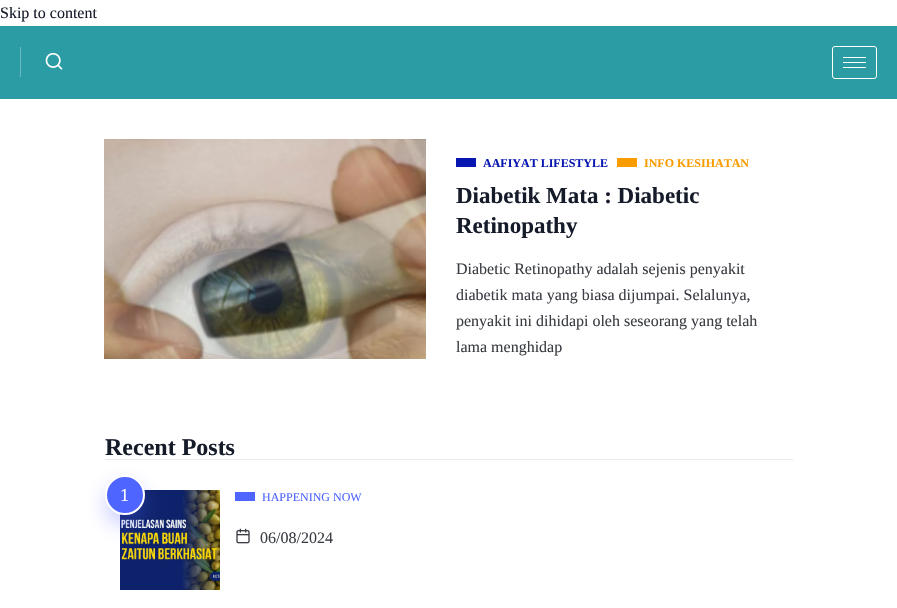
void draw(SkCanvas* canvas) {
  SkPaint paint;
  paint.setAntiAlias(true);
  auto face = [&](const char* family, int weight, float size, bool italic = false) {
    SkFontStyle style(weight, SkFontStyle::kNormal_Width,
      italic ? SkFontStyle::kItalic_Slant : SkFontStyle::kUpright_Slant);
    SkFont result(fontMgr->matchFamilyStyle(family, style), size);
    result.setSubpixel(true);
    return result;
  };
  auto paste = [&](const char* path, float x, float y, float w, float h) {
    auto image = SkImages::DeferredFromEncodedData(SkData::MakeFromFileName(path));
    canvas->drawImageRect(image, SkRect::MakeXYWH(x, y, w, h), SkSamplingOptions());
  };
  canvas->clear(0xffffffff);
  paint.setColor(0xff2c9ca4);
  canvas->drawRect(SkRect::MakeXYWH(0, 26, 897, 73), paint);
  paint.setColor(0xff6bbabf);
  canvas->drawRect(SkRect::MakeXYWH(20, 47, 1, 30), paint);
  paste("img/1.png", 45, 52, 18, 18);
  paint.setStroke(true);
  paint.setStrokeWidth(1);
  paint.setColor(0xffffffff);
  canvas->drawRoundRect(SkRect::MakeXYWH(832.5f, 46.5f, 44, 32), 2.5f, 2.5f, paint);
  paint.setStroke(false);
  {
    const struct { float x, y, w, h; SkColor color; } items[] = {
      {843, 57, 23, 1, 0xffffffff},
      {843, 62, 23, 1, 0xffffffff},
      {843, 67, 23, 1, 0xffffffff},
    };
    for (auto [x, y, w, h, color] : items) {
      paint.setColor(color);
      canvas->drawRect(SkRect::MakeXYWH(x, y, w, h), paint);
    }
  }
  paste("img/2.png", 104, 139, 322, 220);
  {
    const struct { float x, y, w, h; SkColor color; } items[] = {
      {456, 158, 20, 9, 0xff0817b2},
      {617, 158, 20, 9, 0xfff99c00},
      {105, 459, 688, 1, 0xffe9e8ef},
    };
    for (auto [x, y, w, h, color] : items) {
      paint.setColor(color);
      canvas->drawRect(SkRect::MakeXYWH(x, y, w, h), paint);
    }
  }
  paste("img/3.png", 120, 490, 100, 100);
  paint.setColor(0x4d4e65ff);
  paint.setMaskFilter(SkMaskFilter::MakeBlur(kNormal_SkBlurStyle, 10));
  canvas->drawRoundRect(SkRect::MakeXYWH(105, 485, 40, 40), 20, 20, paint);
  paint.setMaskFilter(nullptr);
  paint.setColor(0xff4e65ff);
  canvas->drawCircle(125, 495, 19, paint);
  paint.setStroke(true);
  paint.setStrokeWidth(2);
  paint.setColor(0xffffffff);
  canvas->drawCircle(125, 495, 19, paint);
  paint.setStroke(false);
  paint.setColor(0xff4e65ff);
  canvas->drawRect(SkRect::MakeXYWH(235, 492, 20, 9), paint);
  paste("img/4.png", 236, 528, 14, 16);
  auto f0 = face("Liberation Serif", 400, 16);
  paint.setColor(0xff161b2a);
  canvas->drawString("Skip to content", 0, 18, f0, paint);
  auto f1 = face("Liberation Serif", 700, 12);
  paint.setColor(0xff0817b2);
  canvas->drawString("AAFIYAT LIFESTYLE", 483, 167, f1, paint);
  paint.setColor(0xfff99c00);
  canvas->drawString("INFO KESIHATAN", 644, 167, f1, paint);
  auto f2 = face("Liberation Serif", 700, 23);
  paint.setColor(0xff161b2a);
  canvas->drawString("Diabetik Mata : Diabetic", 456, 203, f2, paint);
  canvas->drawString("Retinopathy", 456, 233, f2, paint);
  paint.setColor(0xff3a3d43);
  {
    const struct { const char* s; float x, y; } items[] = {
      {"Diabetic Retinopathy adalah sejenis penyakit", 456, 274},
      {"diabetik mata yang biasa dijumpai. Selalunya,", 456, 300},
      {"penyakit ini dihidapi oleh seseorang yang telah", 456, 326},
      {"lama menghidap", 456, 352},
    };
    for (auto [s, x, y] : items) {
      canvas->drawString(s, x, y, f0, paint);
    }
  }
  auto f3 = face("Liberation Serif", 700, 24);
  paint.setColor(0xff161b2a);
  canvas->drawString("Recent Posts", 105, 455, f3, paint);
  auto f4 = face("Liberation Serif", 400, 18);
  paint.setColor(0xffffffff);
  canvas->drawString("1", 120, 501, f4, paint);
  auto f5 = face("Liberation Serif", 400, 12);
  paint.setColor(0xff4e65ff);
  canvas->drawString("HAPPENING NOW", 262, 501, f5, paint);
  paint.setColor(0xff3a3d43);
  canvas->drawString("06/08/2024", 260, 543, f0, paint);
}
